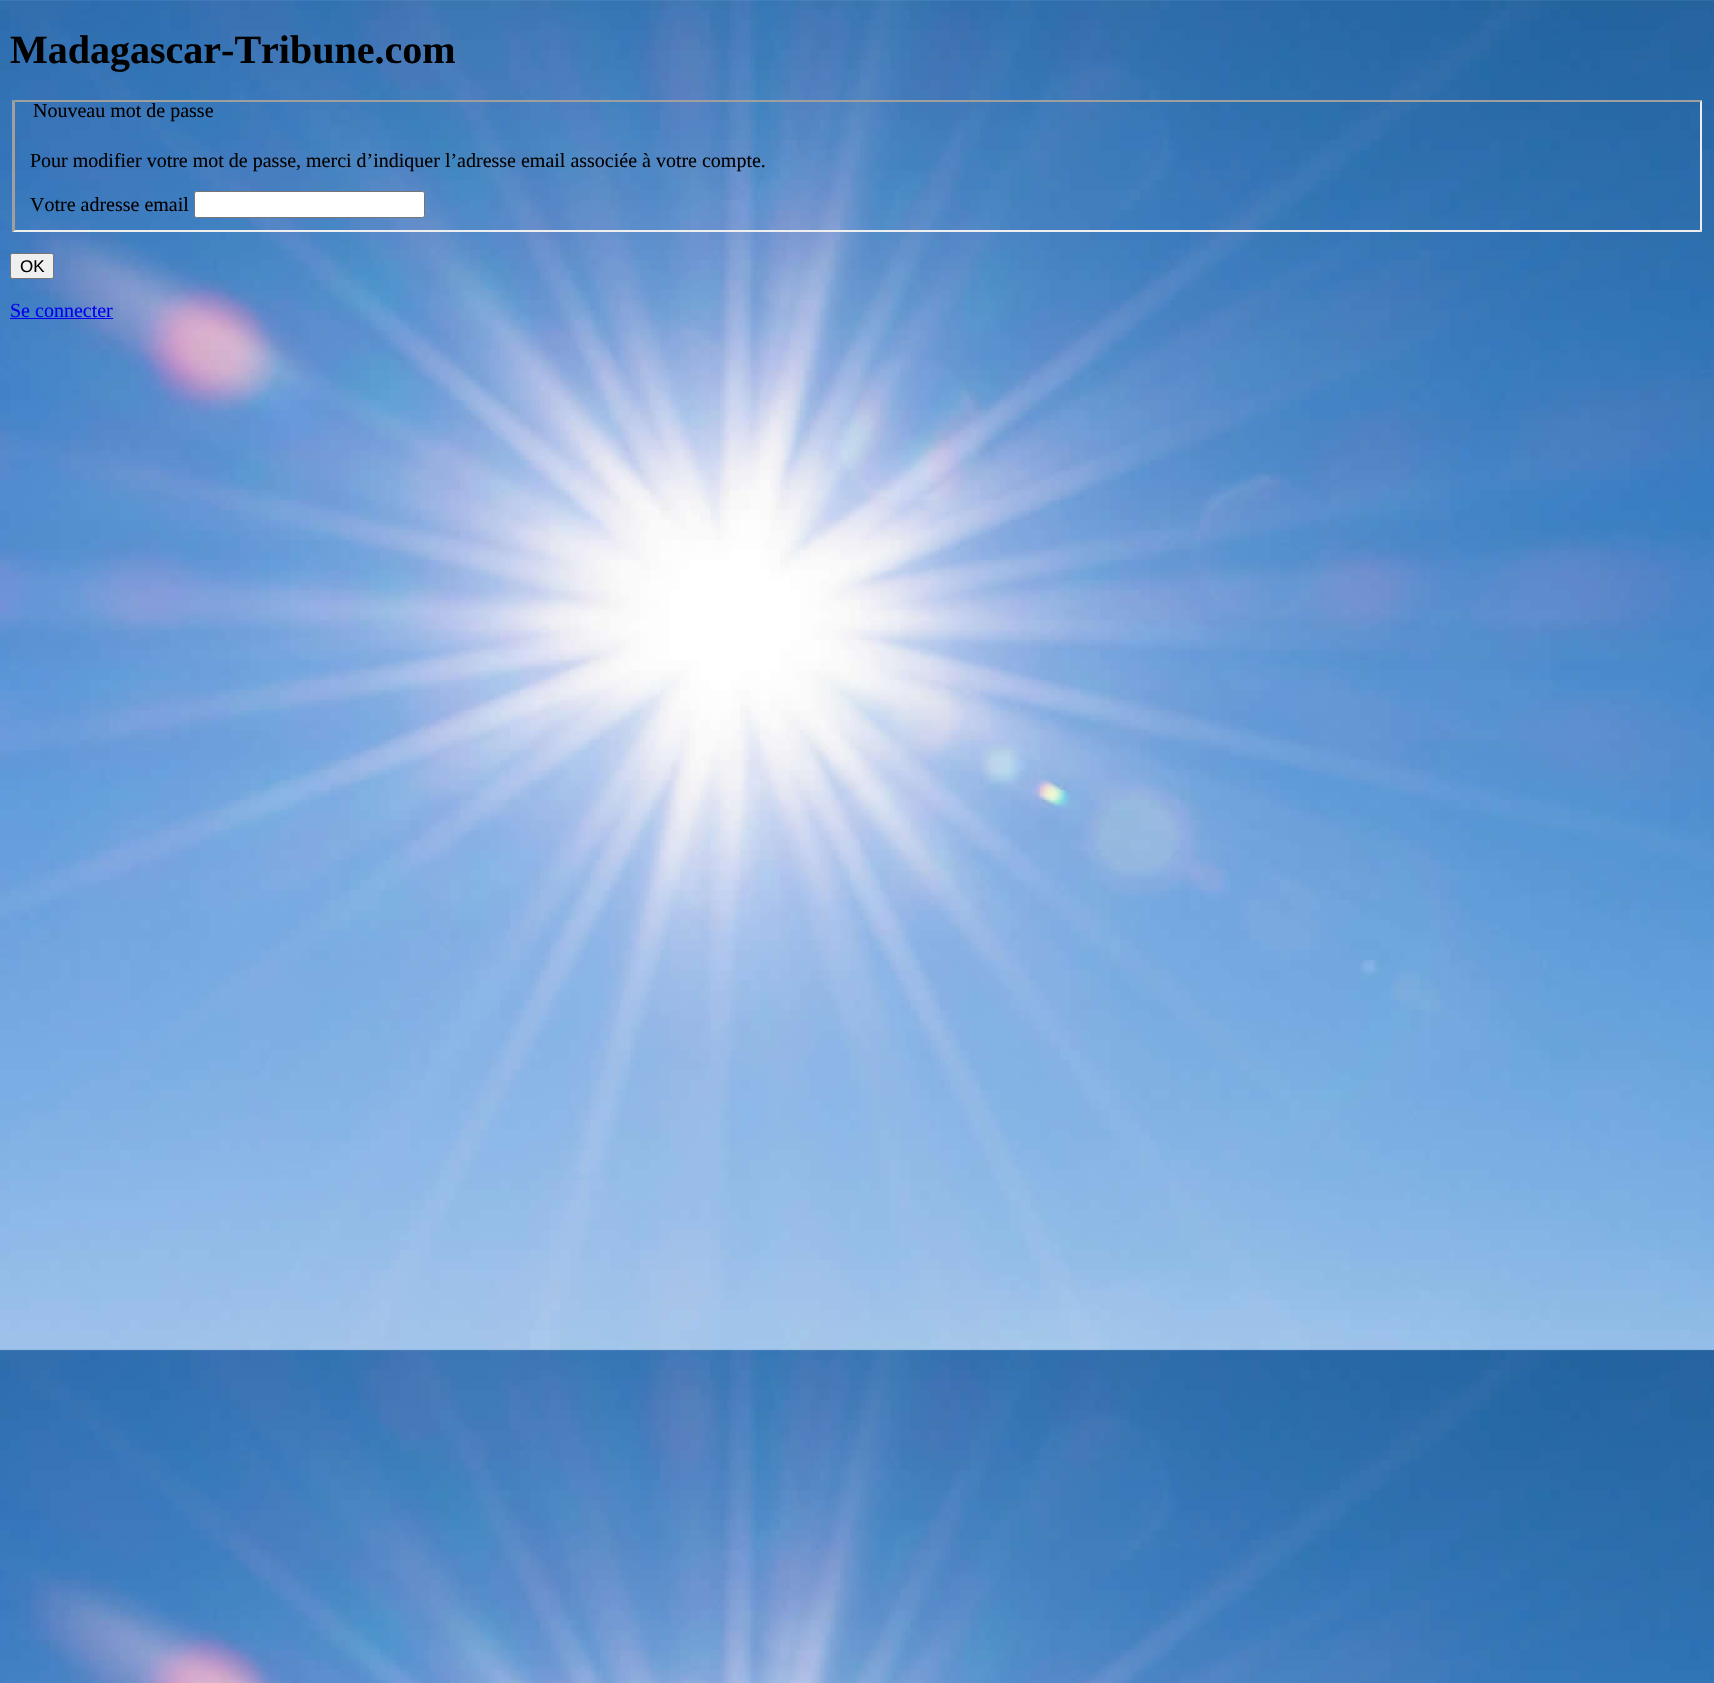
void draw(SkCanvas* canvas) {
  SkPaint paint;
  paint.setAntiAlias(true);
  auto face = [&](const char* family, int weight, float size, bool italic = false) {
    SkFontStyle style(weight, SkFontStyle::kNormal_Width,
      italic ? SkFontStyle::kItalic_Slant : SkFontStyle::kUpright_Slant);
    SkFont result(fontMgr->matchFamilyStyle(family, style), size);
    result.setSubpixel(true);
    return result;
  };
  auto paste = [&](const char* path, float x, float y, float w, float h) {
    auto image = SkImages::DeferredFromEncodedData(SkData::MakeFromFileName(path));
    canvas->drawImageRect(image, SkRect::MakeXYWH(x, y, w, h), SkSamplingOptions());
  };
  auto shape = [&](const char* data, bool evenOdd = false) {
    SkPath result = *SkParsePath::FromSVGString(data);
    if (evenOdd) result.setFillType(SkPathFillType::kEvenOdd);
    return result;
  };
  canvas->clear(0xffffffff);
  paste("img/1.png", 0, 0, 1714, 1683);
  paint.setColor(0xff9f9f9f);
  canvas->drawPath(shape("M12 100H1702L1700 102H15Z"), paint);
  paint.setColor(0xffefefef);
  canvas->drawPath(shape("M1702 100V232L1700 230V102Z"), paint);
  canvas->drawPath(shape("M1702 232H12L15 230H1700Z"), paint);
  paint.setColor(0xff9f9f9f);
  canvas->drawPath(shape("M12 232V100L15 102V230Z"), paint);
  paint.setColor(0xffffffff);
  canvas->drawRoundRect(SkRect::MakeXYWH(194.5f, 191.5f, 230, 26), 2, 2, paint);
  paint.setStroke(true);
  paint.setStrokeWidth(1);
  paint.setColor(0xff767676);
  canvas->drawRoundRect(SkRect::MakeXYWH(194.5f, 191.5f, 230, 26), 2, 2, paint);
  paint.setStroke(false);
  paint.setColor(0xffefefef);
  canvas->drawRoundRect(SkRect::MakeXYWH(10.5f, 253.5f, 43, 25), 2, 2, paint);
  paint.setStroke(true);
  paint.setColor(0xff767676);
  canvas->drawRoundRect(SkRect::MakeXYWH(10.5f, 253.5f, 43, 25), 2, 2, paint);
  paint.setStroke(false);
  paint.setColor(0xff0000ee);
  canvas->drawRect(SkRect::MakeXYWH(10, 318, 103, 1), paint);
  auto f0 = face("Liberation Serif", 700, 40);
  paint.setColor(0xff000000);
  canvas->drawString("Madagascar-Tribune.com", 10, 63, f0, paint);
  auto f1 = face("Liberation Serif", 400, 20);
  {
    const struct { const char* s; float x, y; } items[] = {
      {"Nouveau mot de passe", 33, 117},
      {"Pour modifier votre mot de passe, merci d’indiquer l’adresse email associée à votre compte.", 30, 167},
      {"Votre adresse email", 30, 211},
    };
    for (auto [s, x, y] : items) {
      canvas->drawString(s, x, y, f1, paint);
    }
  }
  auto f2 = face("Liberation Sans", 400, 17);
  canvas->drawString("OK", 20, 272, f2, paint);
  paint.setColor(0xff0000ee);
  canvas->drawString("Se connecter", 10, 317, f1, paint);
}
